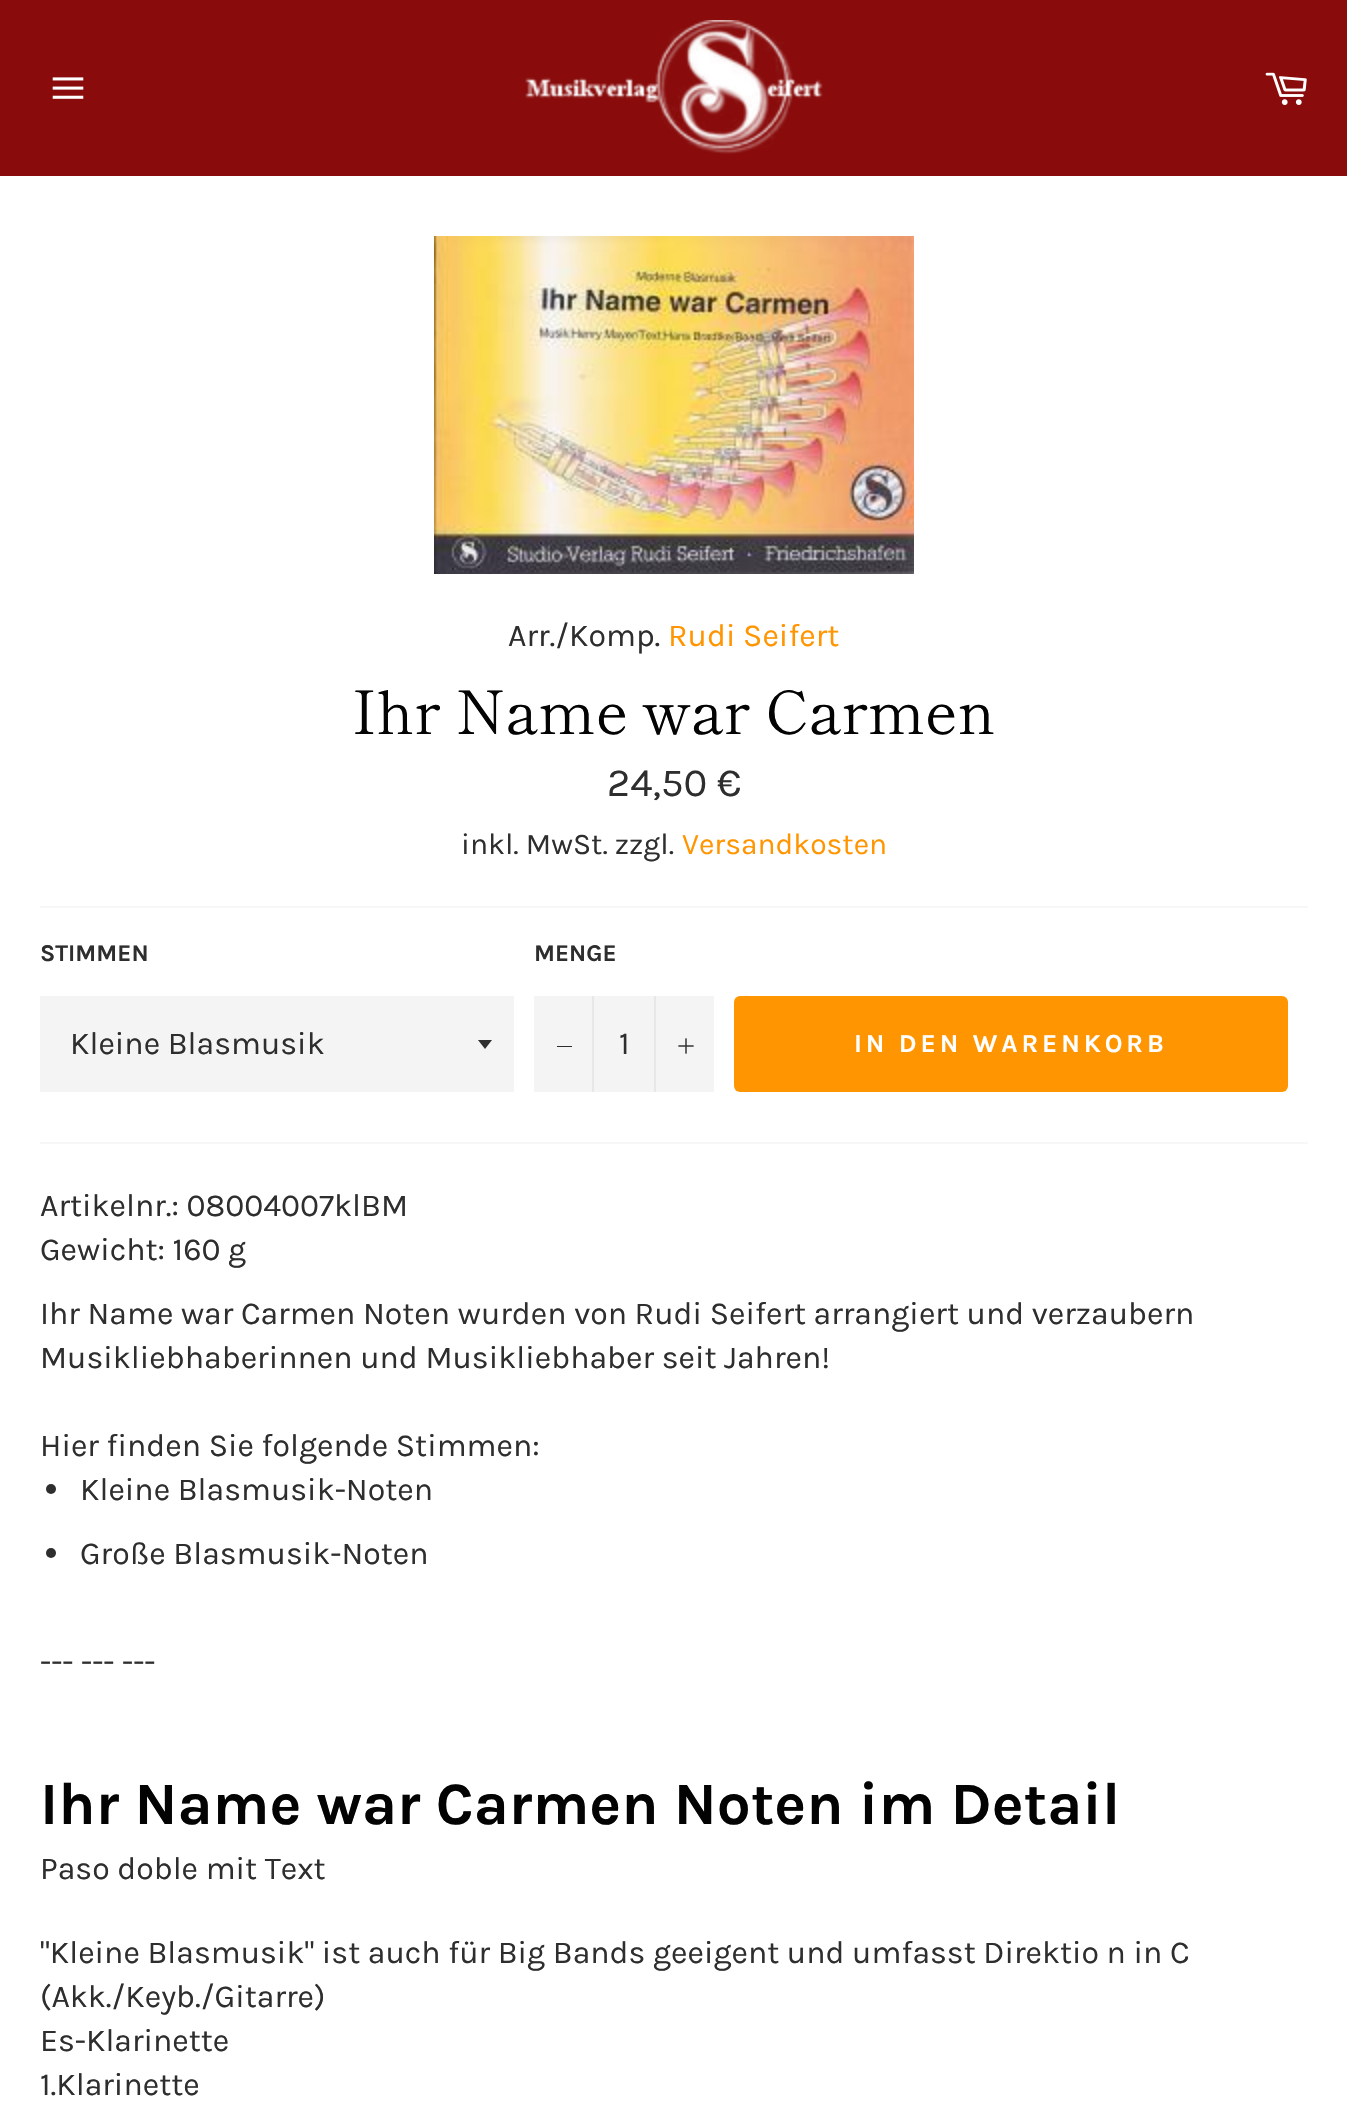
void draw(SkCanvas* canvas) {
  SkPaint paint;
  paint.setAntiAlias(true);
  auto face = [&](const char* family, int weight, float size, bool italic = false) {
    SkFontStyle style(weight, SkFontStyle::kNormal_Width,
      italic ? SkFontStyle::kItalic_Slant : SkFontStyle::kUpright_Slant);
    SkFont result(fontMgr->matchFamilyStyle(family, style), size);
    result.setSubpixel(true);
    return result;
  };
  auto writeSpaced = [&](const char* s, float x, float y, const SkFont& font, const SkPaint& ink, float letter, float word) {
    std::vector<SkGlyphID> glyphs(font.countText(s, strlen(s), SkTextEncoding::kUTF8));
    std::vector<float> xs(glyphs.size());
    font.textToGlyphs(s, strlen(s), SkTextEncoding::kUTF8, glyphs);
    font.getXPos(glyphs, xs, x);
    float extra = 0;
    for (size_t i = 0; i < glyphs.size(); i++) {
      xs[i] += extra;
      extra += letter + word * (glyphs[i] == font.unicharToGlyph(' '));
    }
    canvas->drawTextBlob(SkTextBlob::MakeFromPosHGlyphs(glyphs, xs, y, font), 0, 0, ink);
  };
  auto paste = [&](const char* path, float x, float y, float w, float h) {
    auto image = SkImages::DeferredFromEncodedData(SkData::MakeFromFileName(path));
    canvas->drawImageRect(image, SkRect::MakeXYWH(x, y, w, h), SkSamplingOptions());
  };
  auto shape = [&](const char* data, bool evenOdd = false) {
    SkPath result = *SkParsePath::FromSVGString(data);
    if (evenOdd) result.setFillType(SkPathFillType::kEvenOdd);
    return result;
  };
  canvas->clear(0xff890b0b);
  paste("img/1.png", 52, 77, 32, 22);
  paste("img/2.png", 525, 20, 298, 134);
  paste("img/3.png", 1265, 72, 42, 33);
  paint.setColor(0xffffffff);
  canvas->drawRect(SkRect::MakeXYWH(0, 176, 1347, 1952), paint);
  paste("img/4.png", 434, 236, 480, 338);
  paint.setColor(0xfff7f7f7);
  canvas->drawRect(SkRect::MakeXYWH(40, 906, 1268, 2), paint);
  paint.setColor(0xfff4f4f4);
  canvas->drawRect(SkRect::MakeXYWH(40, 996, 474, 96), paint);
  paint.setColor(0xff2e2e2e);
  canvas->drawPath(shape("M478 1040L485 1049L492 1040Z"), paint);
  {
    const struct { float x, y, w, h; SkColor color; } items[] = {
      {534, 996, 180, 96, 0xfff4f4f4},
      {592, 996, 2, 96, 0xffe7e7e7},
      {557, 1046, 15, 1, 0xff2e2e2e},
      {654, 996, 2, 96, 0xffe7e7e7},
    };
    for (auto [x, y, w, h, color] : items) {
      paint.setColor(color);
      canvas->drawRect(SkRect::MakeXYWH(x, y, w, h), paint);
    }
  }
  paste("img/5.png", 678, 1038, 16, 16);
  paint.setColor(0xffff9500);
  canvas->drawRoundRect(SkRect::MakeXYWH(734, 996, 554, 96), 6, 6, paint);
  paint.setColor(0xfff7f7f7);
  canvas->drawRect(SkRect::MakeXYWH(40, 1142, 1268, 2), paint);
  paint.setColor(0xff2e2e2e);
  canvas->drawCircle(51, 1489, 5, paint);
  canvas->drawCircle(51, 1553, 5, paint);
  auto f0 = face("Karla", 400, 32);
  canvas->drawString("Arr./Komp.", 508, 646, f0, paint);
  paint.setColor(0xffff9500);
  canvas->drawString("Rudi Seifert", 668, 646, f0, paint);
  auto f1 = face("Shippori Mincho", 400, 60);
  paint.setColor(0xff030303);
  canvas->drawString("Ihr Name war Carmen", 352, 734, f1, paint);
  auto f2 = face("Karla", 400, 40);
  paint.setColor(0xff2e2e2e);
  canvas->drawString("24,50 €", 607, 796, f2, paint);
  auto f3 = face("Karla", 400, 30);
  canvas->drawString("inkl. MwSt. zzgl.", 461, 854, f3, paint);
  paint.setColor(0xffff9500);
  canvas->drawString("Versandkosten", 682, 854, f3, paint);
  auto f4 = face("Karla", 700, 24);
  paint.setColor(0xff2e2e2e);
  canvas->drawString("STIMMEN", 40, 961, f4, paint);
  canvas->drawString("Kleine Blasmusik", 70, 1054, f0, paint);
  canvas->drawString("MENGE", 534, 961, f4, paint);
  canvas->drawString("1", 619, 1054, f0, paint);
  auto f5 = face("Karla", 700, 26);
  paint.setColor(0xffffffff);
  writeSpaced("IN DEN WARENKORB", 854, 1052, f5, paint, 3.9f, 0);
  paint.setColor(0xff2e2e2e);
  {
    const struct { const char* s; float x, y; } items[] = {
      {"Artikelnr.: 08004007klBM", 40, 1216},
      {"Gewicht: 160 g", 40, 1260},
      {"Ihr Name war Carmen Noten wurden von Rudi Seifert arrangiert und verzaubern", 40, 1324},
      {"Musikliebhaberinnen und Musikliebhaber seit Jahren!", 40, 1368},
      {"Hier finden Sie folgende Stimmen:", 40, 1456},
      {"Kleine Blasmusik-Noten", 80, 1500},
      {"Große Blasmusik-Noten", 80, 1564},
      {"--- --- ---", 40, 1672},
    };
    for (auto [s, x, y] : items) {
      canvas->drawString(s, x, y, f0, paint);
    }
  }
  auto f6 = face("Karla", 700, 60);
  paint.setColor(0xff030303);
  canvas->drawString("Ihr Name war Carmen Noten im Detail", 40, 1824, f6, paint);
  paint.setColor(0xff2e2e2e);
  {
    const struct { const char* s; float x, y; } items[] = {
      {"Paso doble mit Text", 40, 1879},
      {"\"Kleine Blasmusik\" ist auch für Big Bands geeigent und umfasst Direktio n in C", 40, 1963},
      {"(Akk./Keyb./Gitarre)", 40, 2007},
      {"Es-Klarinette", 40, 2051},
      {"1.Klarinette", 40, 2095},
    };
    for (auto [s, x, y] : items) {
      canvas->drawString(s, x, y, f0, paint);
    }
  }
}
